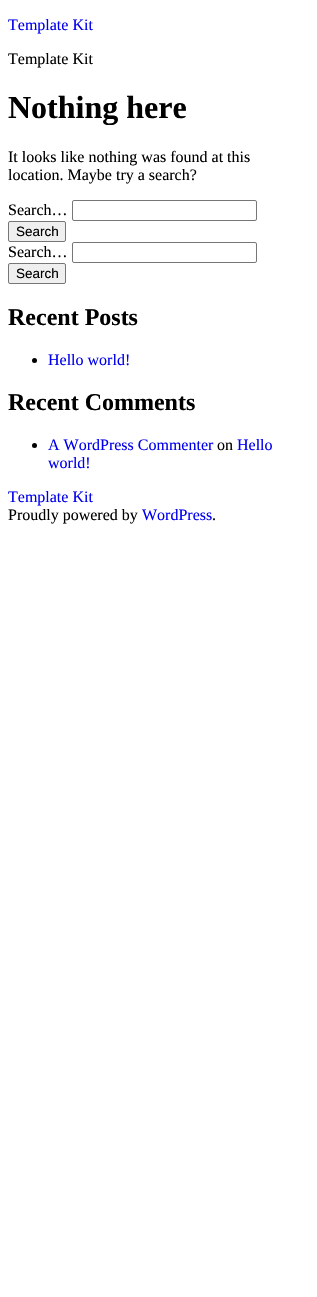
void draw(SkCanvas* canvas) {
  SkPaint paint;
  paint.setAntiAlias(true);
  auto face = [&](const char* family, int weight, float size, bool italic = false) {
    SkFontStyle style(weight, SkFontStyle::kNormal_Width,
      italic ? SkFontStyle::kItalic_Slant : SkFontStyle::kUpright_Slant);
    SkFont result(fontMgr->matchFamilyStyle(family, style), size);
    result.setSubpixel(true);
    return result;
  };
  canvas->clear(0xffffffff);
  paint.setStroke(true);
  paint.setStrokeWidth(1);
  paint.setColor(0xff767676);
  canvas->drawRoundRect(SkRect::MakeXYWH(72.5f, 200.5f, 184, 20), 1.5f, 1.5f, paint);
  paint.setStroke(false);
  paint.setColor(0xffefefef);
  canvas->drawRoundRect(SkRect::MakeXYWH(8.5f, 221.5f, 57, 20), 1.5f, 1.5f, paint);
  paint.setStroke(true);
  paint.setColor(0xff767676);
  canvas->drawRoundRect(SkRect::MakeXYWH(8.5f, 221.5f, 57, 20), 1.5f, 1.5f, paint);
  canvas->drawRoundRect(SkRect::MakeXYWH(72.5f, 242.5f, 184, 20), 1.5f, 1.5f, paint);
  paint.setStroke(false);
  paint.setColor(0xffefefef);
  canvas->drawRoundRect(SkRect::MakeXYWH(8.5f, 263.5f, 57, 20), 1.5f, 1.5f, paint);
  paint.setStroke(true);
  paint.setColor(0xff767676);
  canvas->drawRoundRect(SkRect::MakeXYWH(8.5f, 263.5f, 57, 20), 1.5f, 1.5f, paint);
  paint.setStroke(false);
  paint.setColor(0xff000000);
  canvas->drawCircle(34.5f, 360.5f, 2.5f, paint);
  canvas->drawCircle(34.5f, 445.5f, 2.5f, paint);
  auto f0 = face("Liberation Serif", 400, 16);
  paint.setColor(0xff0000ee);
  canvas->drawString("Template Kit", 8, 30, f0, paint);
  paint.setColor(0xff000000);
  canvas->drawString("Template Kit", 8, 64, f0, paint);
  auto f1 = face("Liberation Serif", 700, 32);
  canvas->drawString("Nothing here", 8, 118, f1, paint);
  {
    const struct { const char* s; float x, y; } items[] = {
      {"It looks like nothing was found at this", 8, 162},
      {"location. Maybe try a search?", 8, 180},
      {"Search…", 8, 215},
    };
    for (auto [s, x, y] : items) {
      canvas->drawString(s, x, y, f0, paint);
    }
  }
  auto f2 = face("Liberation Sans", 400, 13.5f);
  canvas->drawString("Search", 16, 236, f2, paint);
  canvas->drawString("Search…", 8, 257, f0, paint);
  canvas->drawString("Search", 16, 278, f2, paint);
  auto f3 = face("Liberation Serif", 700, 24);
  canvas->drawString("Recent Posts", 8, 325, f3, paint);
  paint.setColor(0xff0000ee);
  canvas->drawString("Hello world!", 48, 365, f0, paint);
  paint.setColor(0xff000000);
  canvas->drawString("Recent Comments", 8, 410, f3, paint);
  paint.setColor(0xff0000ee);
  canvas->drawString("A WordPress Commenter", 48, 450, f0, paint);
  paint.setColor(0xff000000);
  canvas->drawString("on", 217, 450, f0, paint);
  paint.setColor(0xff0000ee);
  {
    const struct { const char* s; float x, y; } items[] = {
      {"Hello", 237, 450},
      {"world!", 48, 468},
      {"Template Kit", 8, 502},
    };
    for (auto [s, x, y] : items) {
      canvas->drawString(s, x, y, f0, paint);
    }
  }
  paint.setColor(0xff000000);
  canvas->drawString("Proudly powered by", 8, 520, f0, paint);
  paint.setColor(0xff0000ee);
  canvas->drawString("WordPress", 142, 520, f0, paint);
  paint.setColor(0xff000000);
  canvas->drawString(".", 212, 520, f0, paint);
}
